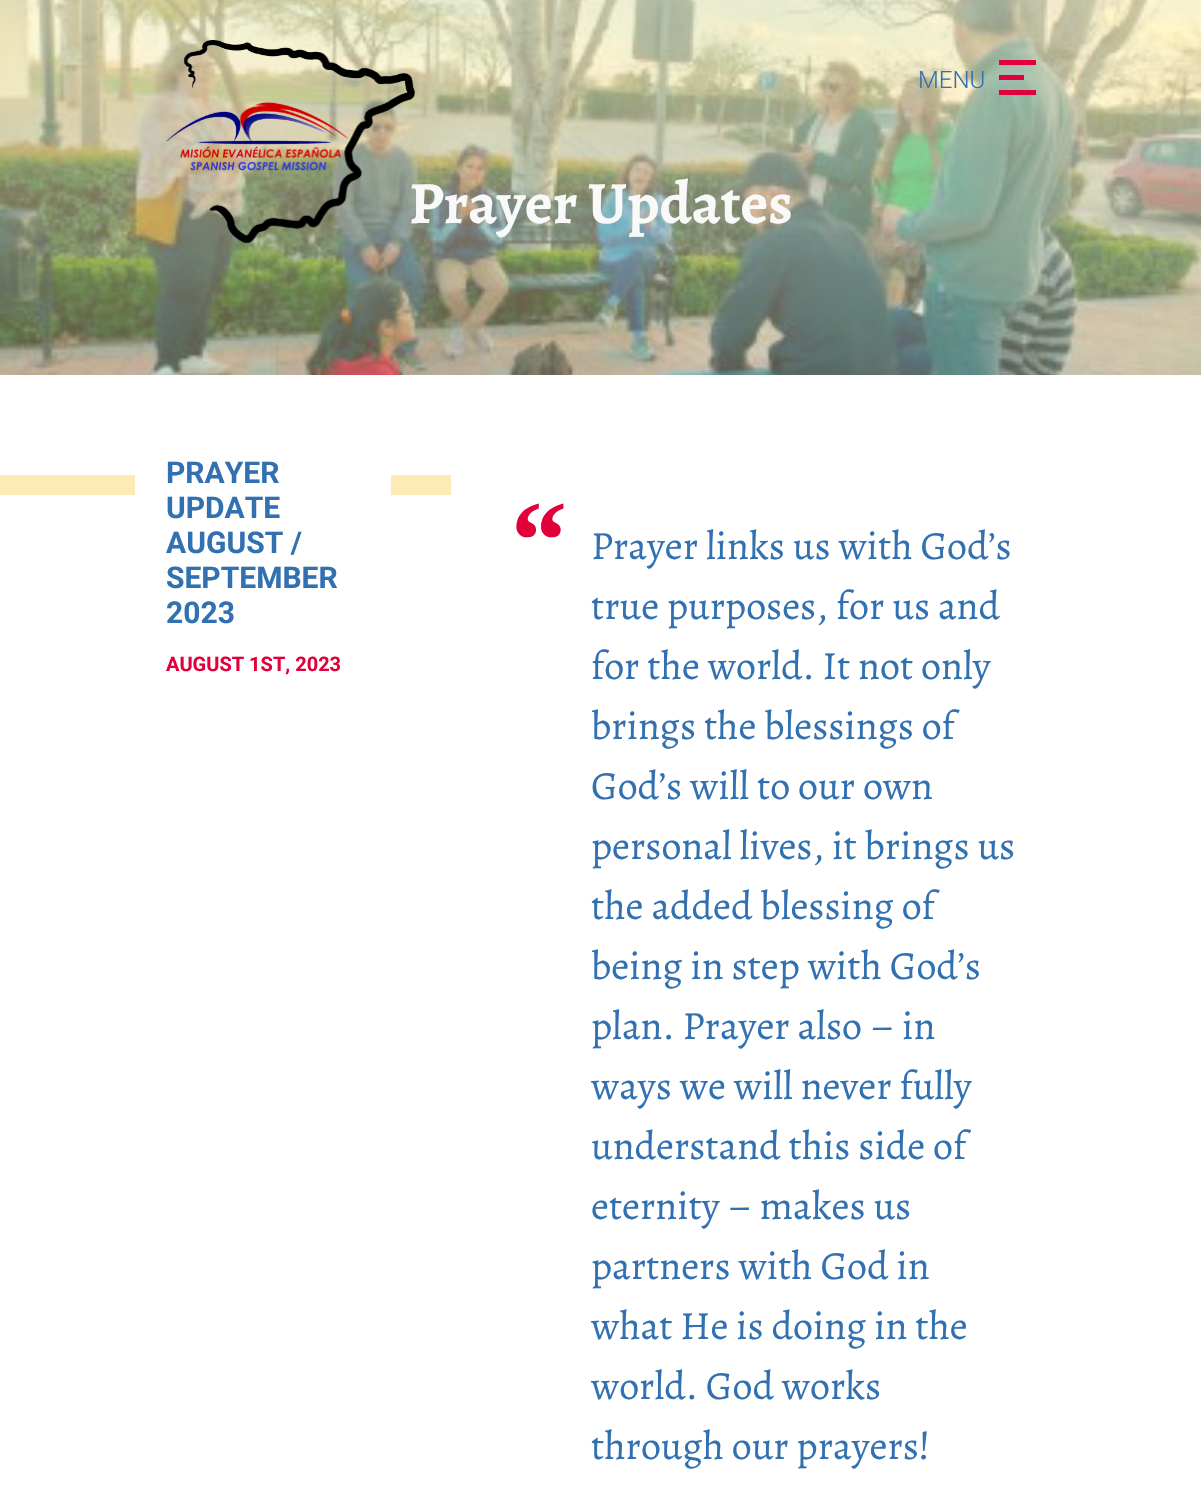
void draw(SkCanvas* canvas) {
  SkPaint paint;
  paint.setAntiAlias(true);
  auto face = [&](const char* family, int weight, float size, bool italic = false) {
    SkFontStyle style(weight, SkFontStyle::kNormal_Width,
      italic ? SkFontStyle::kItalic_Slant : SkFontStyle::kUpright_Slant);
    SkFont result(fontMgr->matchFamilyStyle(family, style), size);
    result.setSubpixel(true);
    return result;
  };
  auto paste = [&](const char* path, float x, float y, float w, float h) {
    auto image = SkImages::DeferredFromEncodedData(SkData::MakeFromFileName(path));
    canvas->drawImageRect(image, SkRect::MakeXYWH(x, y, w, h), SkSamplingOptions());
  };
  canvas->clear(0xffffffff);
  paste("img/2.png", 0, 0, 1201, 375);
  {
    const struct { float x, y, w, h; SkColor color; } items[] = {
      {999, 60, 37, 5, 0xffe2003a},
      {999, 75, 25, 5, 0xffe2003a},
      {999, 90, 37, 5, 0xffe2003a},
      {0, 475, 451, 20, 0xfffeeab5},
      {135, 475, 256, 20, 0xffffffff},
    };
    for (auto [x, y, w, h, color] : items) {
      paint.setColor(color);
      canvas->drawRect(SkRect::MakeXYWH(x, y, w, h), paint);
    }
  }
  auto f0 = face("Roboto", 300, 24);
  paint.setColor(0xff3271b1);
  canvas->drawString("MENU", 918, 88, f0, paint);
  auto f1 = face("Alegreya", 700, 60);
  paint.setColor(0xfff9f9f9);
  canvas->drawString("Prayer Updates", 409, 223, f1, paint);
  paste("img/1.png", 166, 40, 249, 204);
  auto f2 = face("Roboto", 700, 30);
  paint.setColor(0xff3271b1);
  {
    const struct { const char* s; float x, y; } items[] = {
      {"PRAYER", 166, 483},
      {"UPDATE", 166, 518},
      {"AUGUST /", 166, 553},
      {"SEPTEMBER", 166, 588},
      {"2023", 166, 623},
    };
    for (auto [s, x, y] : items) {
      canvas->drawString(s, x, y, f2, paint);
    }
  }
  auto f3 = face("Roboto", 700, 20);
  paint.setColor(0xffe2003a);
  canvas->drawString("AUGUST 1ST, 2023", 166, 671, f3, paint);
  auto f4 = face("Liberation Serif", 700, 112);
  canvas->drawString("“", 511, 578, f4, paint);
  auto f5 = face("Alegreya", 400, 40);
  paint.setColor(0xff3271b1);
  {
    const struct { const char* s; float x, y; } items[] = {
      {"Prayer links us with God’s", 591, 559},
      {"true purposes, for us and", 591, 619},
      {"for the world. It not only", 591, 679},
      {"brings the blessings of", 591, 739},
      {"God’s will to our own", 591, 799},
      {"personal lives, it brings us", 591, 859},
      {"the added blessing of", 591, 919},
      {"being in step with God’s", 591, 979},
      {"plan. Prayer also – in", 591, 1039},
      {"ways we will never fully", 591, 1099},
      {"understand this side of", 591, 1159},
      {"eternity – makes us", 591, 1219},
      {"partners with God in", 591, 1279},
      {"what He is doing in the", 591, 1339},
      {"world. God works", 591, 1399},
      {"through our prayers!", 591, 1459},
    };
    for (auto [s, x, y] : items) {
      canvas->drawString(s, x, y, f5, paint);
    }
  }
}
